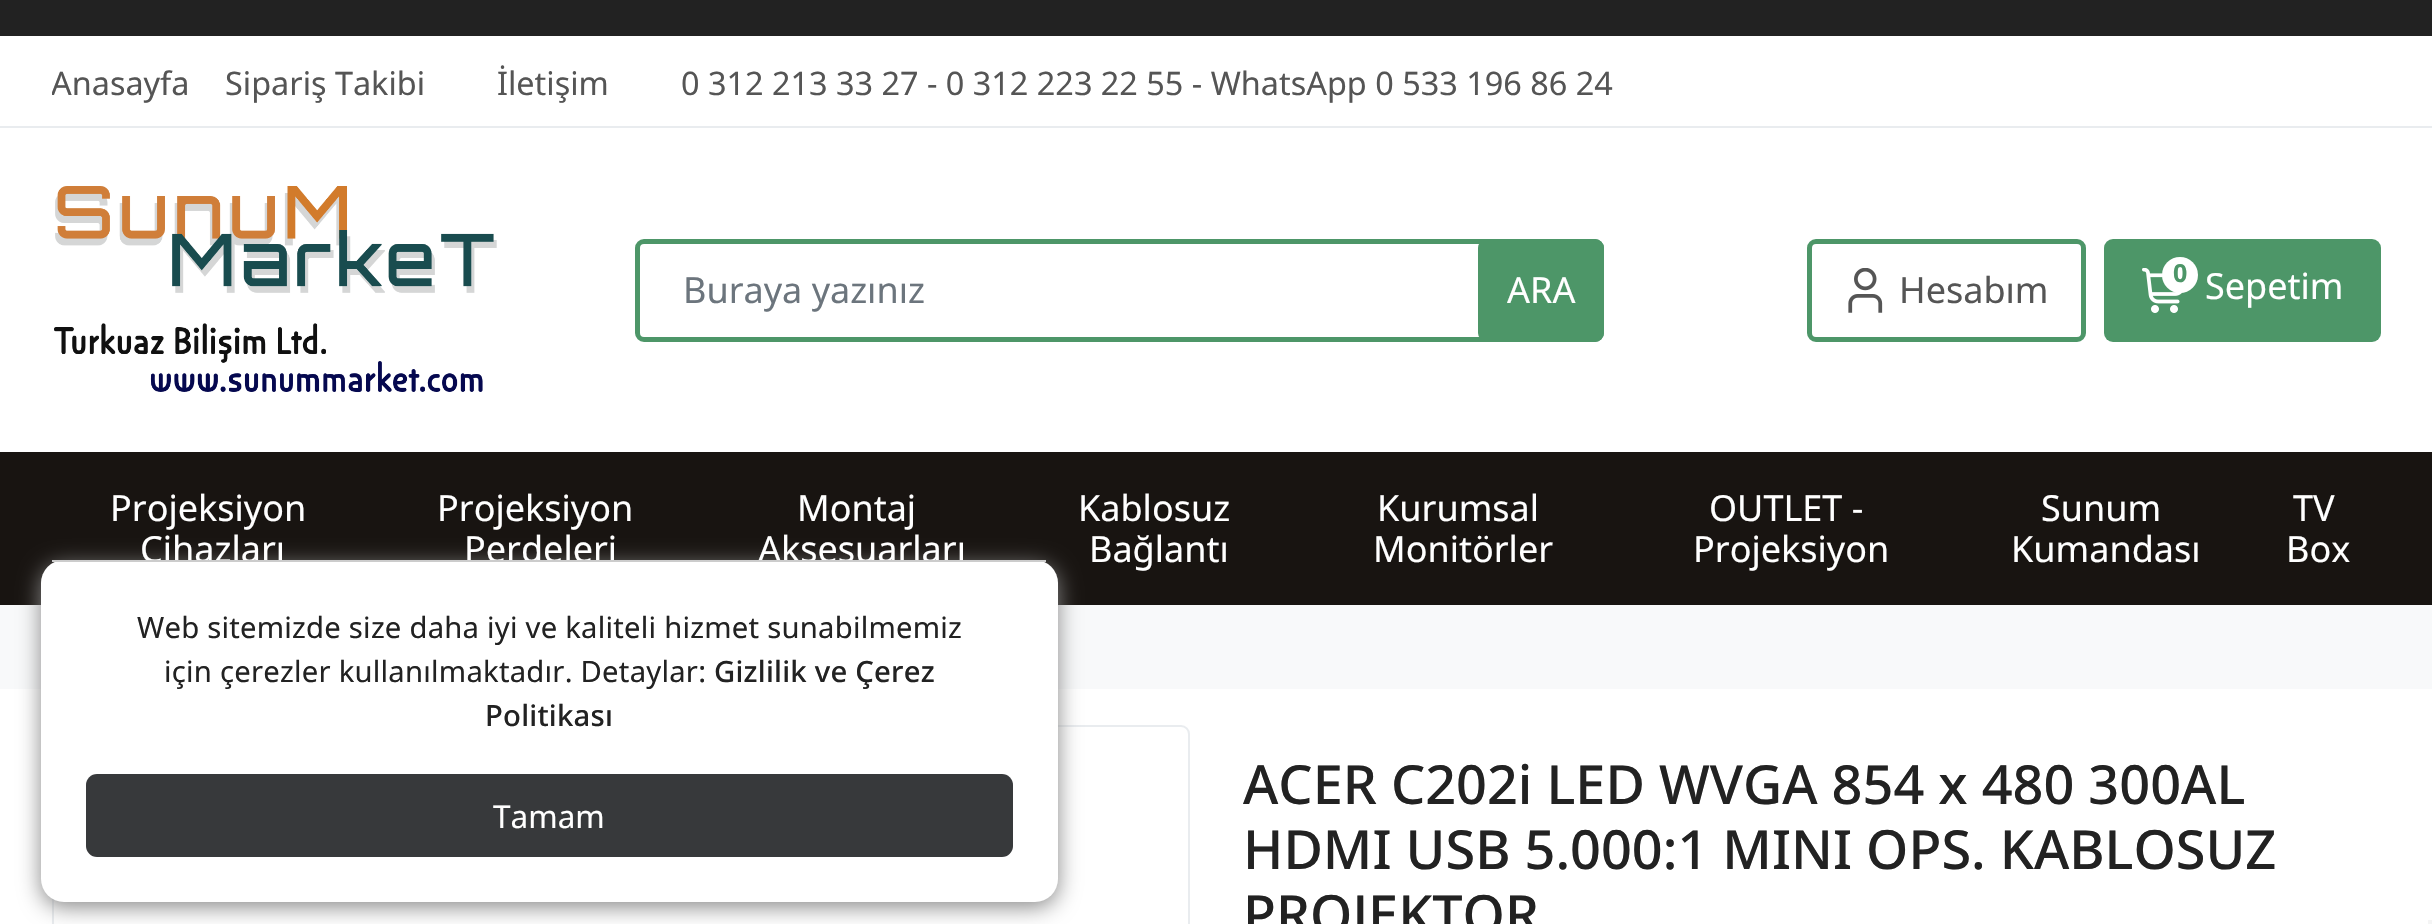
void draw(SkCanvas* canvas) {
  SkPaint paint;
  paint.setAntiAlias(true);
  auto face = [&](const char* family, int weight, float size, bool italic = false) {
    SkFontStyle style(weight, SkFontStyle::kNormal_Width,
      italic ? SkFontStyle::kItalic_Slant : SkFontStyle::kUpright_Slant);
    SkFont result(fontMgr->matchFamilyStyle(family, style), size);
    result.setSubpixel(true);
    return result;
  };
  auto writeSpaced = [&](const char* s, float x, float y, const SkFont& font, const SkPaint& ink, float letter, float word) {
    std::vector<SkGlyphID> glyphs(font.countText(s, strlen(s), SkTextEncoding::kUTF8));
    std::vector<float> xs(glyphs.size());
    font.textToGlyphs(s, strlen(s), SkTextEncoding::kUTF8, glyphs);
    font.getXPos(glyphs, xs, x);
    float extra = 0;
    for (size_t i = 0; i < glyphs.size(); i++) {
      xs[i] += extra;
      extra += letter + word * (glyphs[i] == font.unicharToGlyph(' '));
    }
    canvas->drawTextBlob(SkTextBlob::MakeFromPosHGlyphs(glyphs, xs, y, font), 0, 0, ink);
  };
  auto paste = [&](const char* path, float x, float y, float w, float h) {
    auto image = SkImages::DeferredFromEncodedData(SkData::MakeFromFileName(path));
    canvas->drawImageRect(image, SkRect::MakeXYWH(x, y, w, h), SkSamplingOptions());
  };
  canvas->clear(0xffffffff);
  paint.setColor(0xff222222);
  canvas->drawRect(SkRect::MakeXYWH(0, 0, 2432, 36), paint);
  paint.setColor(0xffe9ecef);
  canvas->drawRect(SkRect::MakeXYWH(0, 126, 2432, 2), paint);
  paste("img/1.png", 54, 186, 443, 207);
  paint.setStroke(true);
  paint.setStrokeWidth(5);
  paint.setColor(0xff4d9668);
  canvas->drawRoundRect(SkRect::MakeXYWH(637.5f, 241.5f, 964, 98), 6.5f, 6.5f, paint);
  paint.setStroke(false);
  canvas->drawRoundRect(SkRect::MakeXYWH(1478, 239, 126, 103), 9, 9, paint);
  paint.setStroke(true);
  canvas->drawRoundRect(SkRect::MakeXYWH(1809.5f, 241.5f, 274, 98), 6.5f, 6.5f, paint);
  paste("img/2.png", 1848, 268, 35, 45);
  paint.setStroke(false);
  canvas->drawRoundRect(SkRect::MakeXYWH(2104, 239, 277, 103), 9, 9, paint);
  paste("img/3.png", 2142, 268, 41, 45);
  paint.setColor(0xffffffff);
  canvas->drawCircle(2180, 275, 18, paint);
  paint.setColor(0xff181411);
  canvas->drawRect(SkRect::MakeXYWH(0, 452, 2432, 153), paint);
  paint.setColor(0xfff8f9fa);
  canvas->drawRect(SkRect::MakeXYWH(0, 605, 2432, 84), paint);
  paint.setStroke(true);
  paint.setStrokeWidth(2);
  paint.setColor(0xffe9ecef);
  canvas->drawRoundRect(SkRect::MakeXYWH(53, 726, 1136, 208), 8, 8, paint);
  paint.setStroke(false);
  paint.setColor(0xff888888);
  paint.setMaskFilter(SkMaskFilter::MakeBlur(kNormal_SkBlurStyle, 11));
  canvas->drawRoundRect(SkRect::MakeXYWH(41, 565, 1017, 342), 23, 23, paint);
  paint.setMaskFilter(nullptr);
  paint.setColor(0xffffffff);
  canvas->drawRoundRect(SkRect::MakeXYWH(41, 560, 1017, 342), 23, 23, paint);
  paint.setColor(0xff37393b);
  canvas->drawRoundRect(SkRect::MakeXYWH(86, 774, 927, 83), 11, 11, paint);
  paint.setColor(0xfff5f5f5);
  canvas->drawRect(SkRect::MakeXYWH(2428, 920, 4, 4), paint);
  canvas->save();
  canvas->clipRect(SkRect::MakeXYWH(52, 36, 2331, 90));
  auto f0 = face("Noto Sans", 400, 32.4f);
  paint.setColor(0xff555555);
  canvas->drawString("Anasayfa", 51, 95, f0, paint);
  canvas->restore();
  {
    const struct { const char* s; float x, y; } items[] = {
      {"Sipariş Takibi", 225, 95},
      {"İletişim", 497, 95},
      {"0 312 213 33 27 - 0 312 223 22 55 - WhatsApp 0 533 196 86 24", 681, 95},
    };
    for (auto [s, x, y] : items) {
      canvas->drawString(s, x, y, f0, paint);
    }
  }
  auto f1 = face("Noto Sans", 400, 36);
  paint.setColor(0xff6c757d);
  canvas->drawString("Buraya yazınız", 683, 303, f1, paint);
  paint.setColor(0xffffffff);
  canvas->drawString("ARA", 1507, 303, f1, paint);
  paint.setColor(0xff555555);
  canvas->drawString("Hesabım", 1899, 303, f1, paint);
  auto f2 = face("Noto Sans", 700, 25);
  paint.setColor(0xff4d9668);
  canvas->drawString("0", 2173, 282, f2, paint);
  paint.setColor(0xffffffff);
  {
    const struct { const char* s; float x, y; } items[] = {
      {"Sepetim", 2205, 299},
      {"Projeksiyon", 110, 521},
      {"Cihazları", 140, 562},
      {"Projeksiyon", 437, 521},
      {"Perdeleri", 464, 562},
      {"Montaj", 797, 521},
      {"Aksesuarları", 758, 562},
      {"Kablosuz", 1078, 521},
      {"Bağlantı", 1089, 562},
      {"Kurumsal", 1377, 521},
      {"Monitörler", 1373, 562},
      {"OUTLET -", 1709, 521},
      {"Projeksiyon", 1693, 562},
      {"Sunum", 2041, 521},
      {"Kumandası", 2011, 562},
      {"TV", 2293, 521},
      {"Box", 2286, 562},
    };
    for (auto [s, x, y] : items) {
      canvas->drawString(s, x, y, f1, paint);
    }
  }
  paint.setColor(0xffcccccc);
  canvas->drawRect(SkRect::MakeXYWH(52, 560, 994, 2), paint);
  auto f3 = face("Noto Sans", 400, 29.25f);
  paint.setColor(0xff222222);
  writeSpaced("Web sitemizde size daha iyi ve kaliteli hizmet sunabilmemiz", 137, 638, f3, paint, 0.23f, 0);
  writeSpaced("için çerezler kullanılmaktadır. Detaylar:", 164, 682, f3, paint, 0.23f, 0);
  auto f4 = face("Noto Sans", 500, 29.25f);
  writeSpaced("Gizlilik ve Çerez", 714, 682, f4, paint, 0.23f, 0);
  writeSpaced("Politikası", 485, 726, f4, paint, 0.23f, 0);
  auto f5 = face("Noto Sans", 400, 31.5f);
  paint.setColor(0xffffffff);
  canvas->drawString("Tamam", 493, 828, f5, paint);
  auto f6 = face("Noto Sans", 500, 54);
  paint.setColor(0xff222222);
  {
    const struct { const char* s; float x, y; } items[] = {
      {"ACER C202i LED WVGA 854 x 480 300AL", 1243, 804},
      {"HDMI USB 5.000:1 MINI OPS. KABLOSUZ", 1243, 869},
      {"PROJEKTOR", 1243, 934},
    };
    for (auto [s, x, y] : items) {
      canvas->drawString(s, x, y, f6, paint);
    }
  }
}
